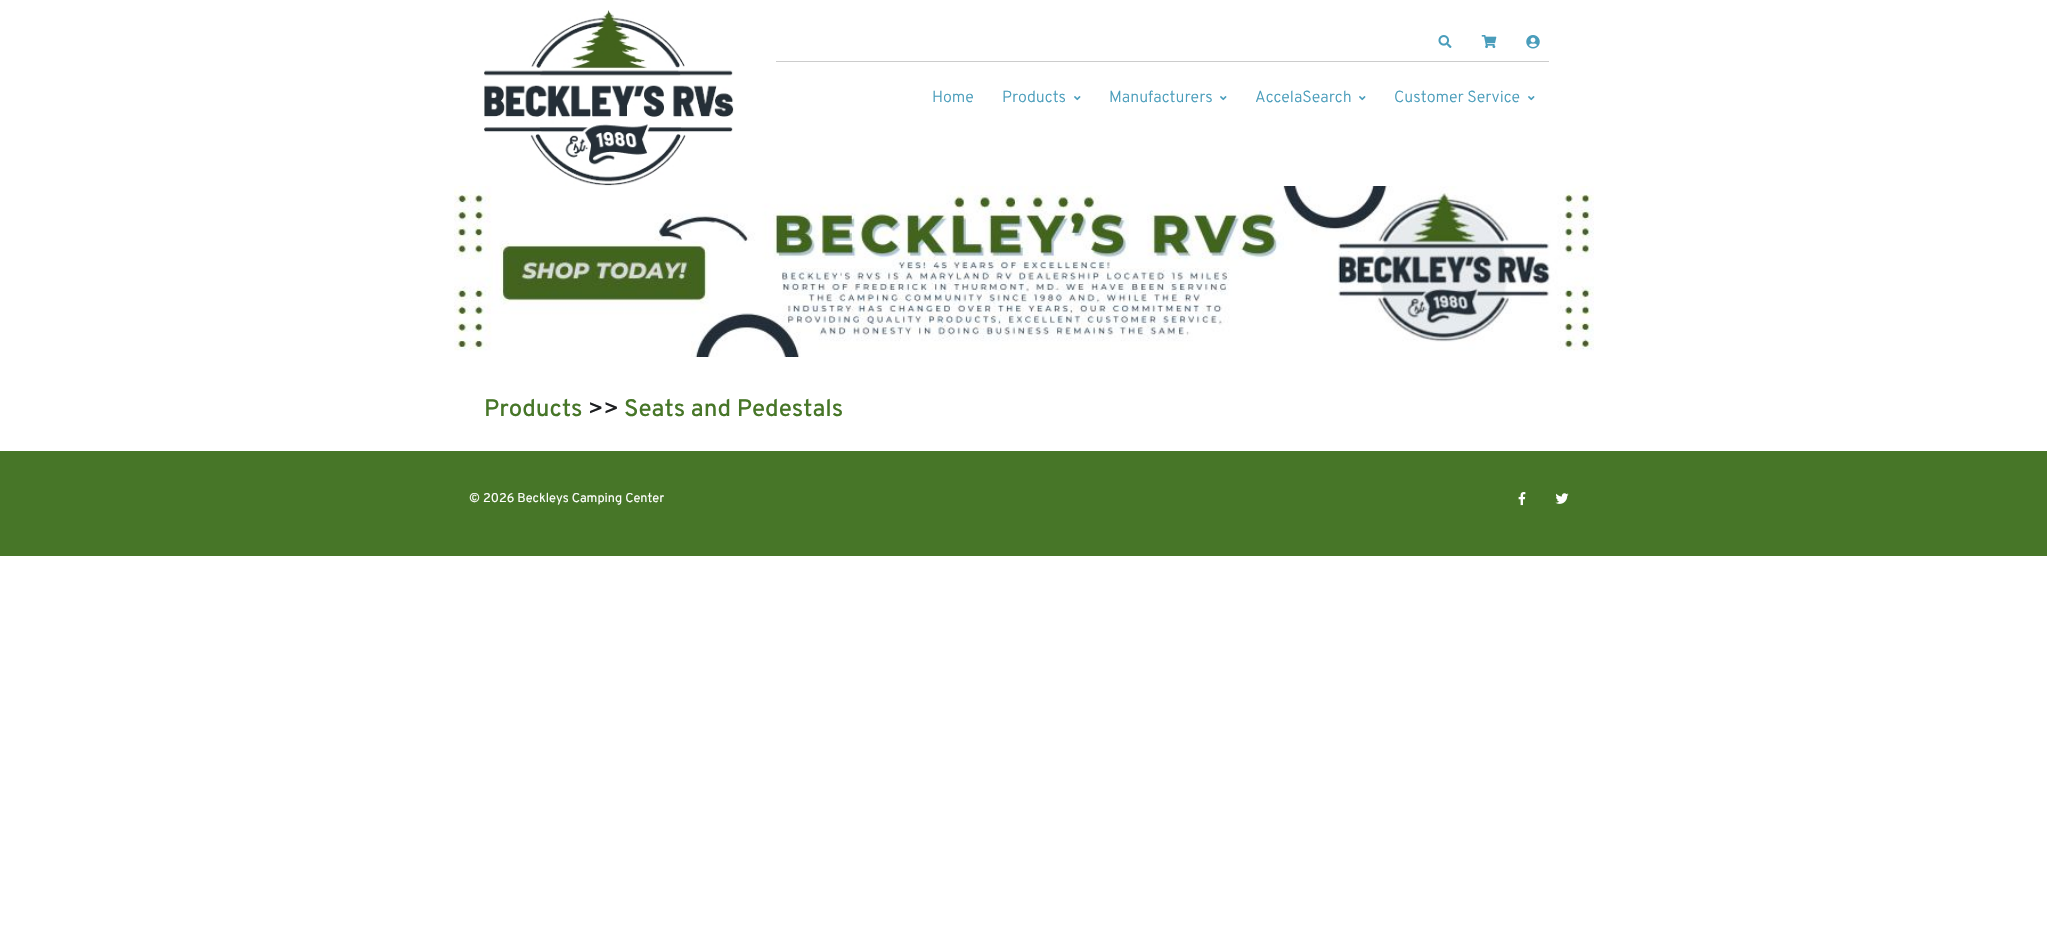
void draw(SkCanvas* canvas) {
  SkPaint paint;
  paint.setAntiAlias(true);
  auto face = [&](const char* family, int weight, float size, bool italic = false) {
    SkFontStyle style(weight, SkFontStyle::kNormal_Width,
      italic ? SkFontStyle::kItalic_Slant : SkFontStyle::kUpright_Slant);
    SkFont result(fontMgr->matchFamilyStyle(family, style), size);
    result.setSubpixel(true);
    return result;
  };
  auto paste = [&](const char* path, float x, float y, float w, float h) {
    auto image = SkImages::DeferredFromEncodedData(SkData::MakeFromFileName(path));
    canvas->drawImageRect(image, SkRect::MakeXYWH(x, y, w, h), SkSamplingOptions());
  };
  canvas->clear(0xffffffff);
  paste("img/1.png", 484, 10, 250, 176);
  paint.setColor(0xffcccccc);
  canvas->drawRect(SkRect::MakeXYWH(776, 61, 773, 1), paint);
  paste("img/2.png", 1438, 35, 14, 13);
  paste("img/3.png", 1481, 35, 16, 14);
  paste("img/4.png", 1526, 35, 14, 14);
  paste("img/5.png", 1074, 96, 7, 5);
  paste("img/5.png", 1220, 96, 7, 5);
  paste("img/5.png", 1359, 96, 7, 5);
  paste("img/5.png", 1528, 96, 7, 5);
  paste("img/6.png", 454, 186, 1140, 171);
  paint.setColor(0xff477628);
  canvas->drawRect(SkRect::MakeXYWH(0, 451, 2047, 105), paint);
  paste("img/7.png", 1518, 492, 8, 14);
  paste("img/8.png", 1555, 493, 14, 11);
  auto f0 = face("Overpass", 300, 16);
  paint.setColor(0xff4a9dbb);
  {
    const struct { const char* s; float x, y; } items[] = {
      {"Home", 932, 102},
      {"Products", 1002, 102},
      {"Manufacturers", 1109, 102},
      {"AccelaSearch", 1255, 102},
      {"Customer Service", 1394, 102},
    };
    for (auto [s, x, y] : items) {
      canvas->drawString(s, x, y, f0, paint);
    }
  }
  auto f1 = face("Overpass", 500, 24);
  paint.setColor(0xff477628);
  canvas->drawString("Products", 484, 416, f1, paint);
  paint.setColor(0xff1e2022);
  canvas->drawString(">>", 588, 416, f1, paint);
  paint.setColor(0xff477628);
  canvas->drawString("Seats and Pedestals", 624, 416, f1, paint);
  auto f2 = face("Overpass", 400, 12.75f);
  paint.setColor(0xffffffff);
  canvas->drawString("© 2026 Beckleys Camping Center", 469, 502, f2, paint);
}
